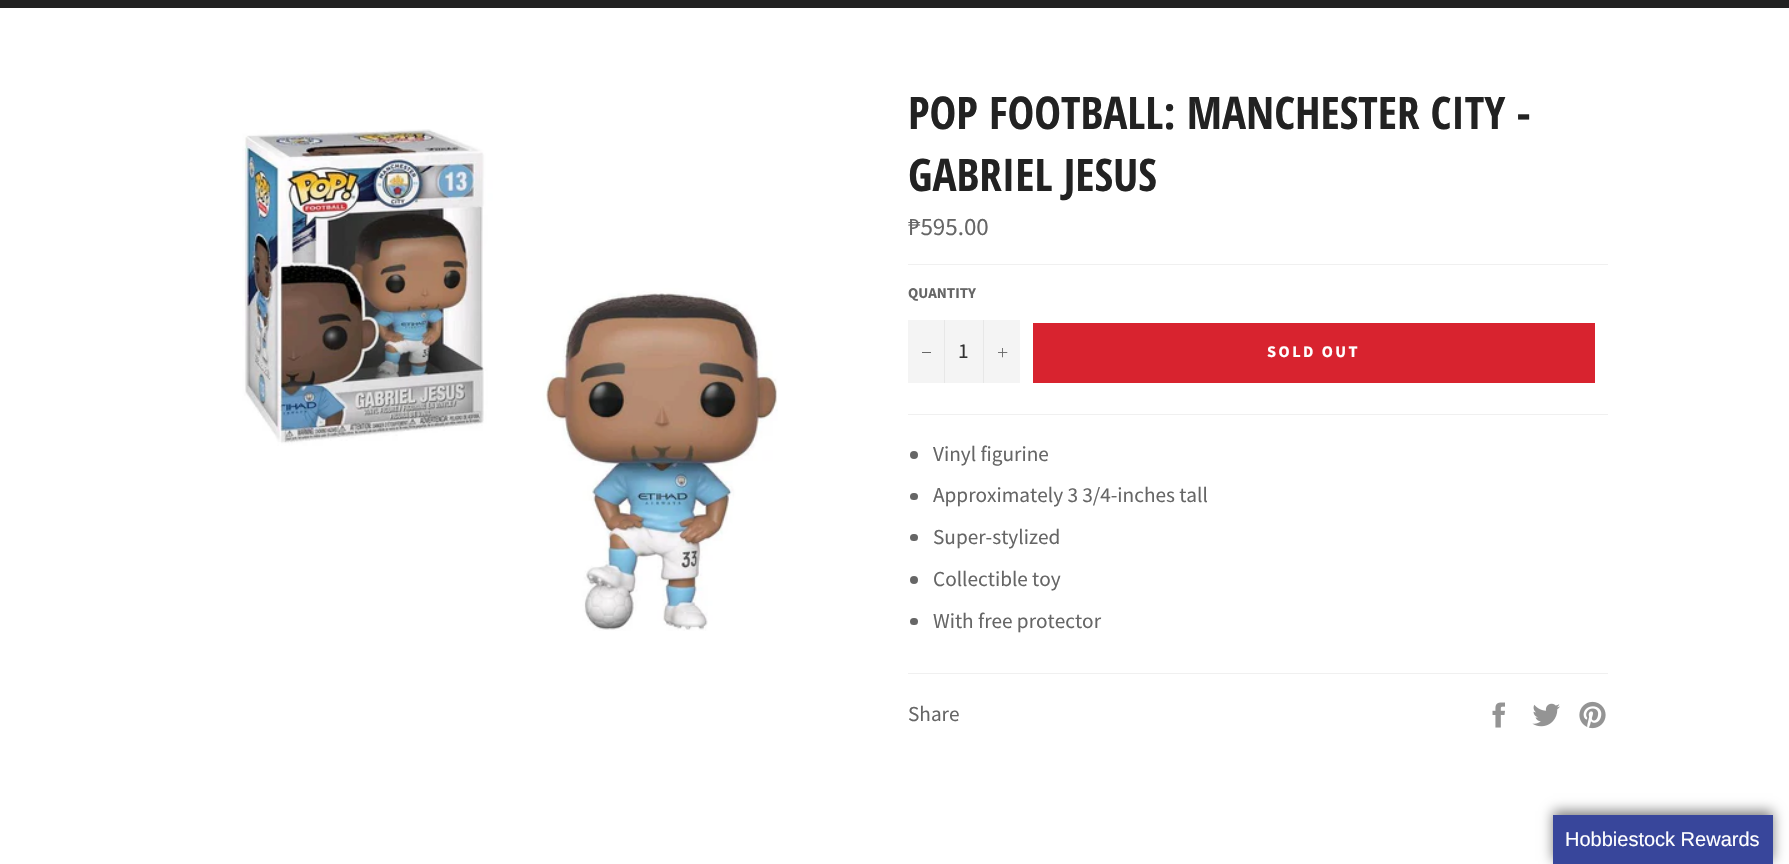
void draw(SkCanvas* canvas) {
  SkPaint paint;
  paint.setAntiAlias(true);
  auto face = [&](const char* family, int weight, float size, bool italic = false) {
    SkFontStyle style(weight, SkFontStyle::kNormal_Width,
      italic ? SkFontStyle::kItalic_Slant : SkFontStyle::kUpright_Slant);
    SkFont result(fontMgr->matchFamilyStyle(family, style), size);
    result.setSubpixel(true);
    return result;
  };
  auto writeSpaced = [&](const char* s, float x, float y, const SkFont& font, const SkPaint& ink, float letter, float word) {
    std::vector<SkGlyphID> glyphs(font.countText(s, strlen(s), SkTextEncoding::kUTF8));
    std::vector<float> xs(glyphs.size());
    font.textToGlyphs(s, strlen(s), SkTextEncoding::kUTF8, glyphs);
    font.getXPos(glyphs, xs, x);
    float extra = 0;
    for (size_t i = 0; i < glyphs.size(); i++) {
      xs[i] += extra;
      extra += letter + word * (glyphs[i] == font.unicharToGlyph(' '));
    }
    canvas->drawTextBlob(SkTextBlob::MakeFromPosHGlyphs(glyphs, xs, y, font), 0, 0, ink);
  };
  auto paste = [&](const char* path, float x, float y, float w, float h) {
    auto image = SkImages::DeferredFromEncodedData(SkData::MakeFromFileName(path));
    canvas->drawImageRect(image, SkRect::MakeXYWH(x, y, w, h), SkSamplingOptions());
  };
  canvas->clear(0xffffffff);
  paint.setColor(0xff222222);
  canvas->drawRect(SkRect::MakeXYWH(0, 0, 1789, 8), paint);
  paste("img/1.png", 242, 129, 536, 502);
  {
    const struct { float x, y, w, h; SkColor color; } items[] = {
      {908, 264, 700, 1, 0xfff0f0f0},
      {908, 320, 112, 63, 0xfff4f4f4},
      {944, 320, 1, 63, 0xffe7e7e7},
      {922, 352, 9, 1, 0xff666666},
      {983, 320, 1, 63, 0xffe7e7e7},
    };
    for (auto [x, y, w, h, color] : items) {
      paint.setColor(color);
      canvas->drawRect(SkRect::MakeXYWH(x, y, w, h), paint);
    }
  }
  paste("img/2.png", 998, 348, 10, 10);
  paint.setColor(0xffd8232f);
  canvas->drawRect(SkRect::MakeXYWH(1033, 323, 562, 60), paint);
  paint.setColor(0xfff0f0f0);
  canvas->drawRect(SkRect::MakeXYWH(908, 414, 700, 1), paint);
  paint.setColor(0xff666666);
  canvas->drawCircle(914, 455, 4, paint);
  canvas->drawRoundRect(SkRect::MakeXYWH(910, 493, 8, 7), 3.5f, 3.5f, paint);
  canvas->drawRoundRect(SkRect::MakeXYWH(910, 534, 8, 7), 3.5f, 3.5f, paint);
  canvas->drawCircle(914, 580, 4, paint);
  canvas->drawRoundRect(SkRect::MakeXYWH(910, 618, 8, 7), 3.5f, 3.5f, paint);
  paint.setColor(0xfff0f0f0);
  canvas->drawRect(SkRect::MakeXYWH(908, 673, 700, 1), paint);
  paste("img/3.png", 1492, 702, 13, 26);
  paste("img/4.png", 1532, 703, 28, 24);
  paste("img/5.png", 1579, 701, 27, 28);
  paint.setColor(0x80000000);
  paint.setMaskFilter(SkMaskFilter::MakeBlur(kNormal_SkBlurStyle, 6));
  canvas->drawRect(SkRect::MakeXYWH(1553, 811, 220, 50), paint);
  paint.setMaskFilter(nullptr);
  paint.setColor(0xff38469b);
  canvas->drawRect(SkRect::MakeXYWH(1553, 815, 220, 49), paint);
  auto f0 = face("Open Sans Condensed", 700, 45);
  paint.setColor(0xff222222);
  canvas->drawString("POP FOOTBALL: MANCHESTER CITY -", 908, 129, f0, paint);
  canvas->drawString("GABRIEL JESUS", 908, 191, f0, paint);
  auto f1 = face("Source Sans Pro", 400, 25);
  paint.setColor(0xff666666);
  canvas->drawString("₱595.00", 908, 235, f1, paint);
  auto f2 = face("Source Sans Pro", 700, 15);
  canvas->drawString("QUANTITY", 908, 298, f2, paint);
  auto f3 = face("Source Sans Pro", 400, 21.25f);
  paint.setColor(0xff333333);
  canvas->drawString("1", 958, 358, f3, paint);
  auto f4 = face("Source Sans Pro", 700, 16.25f);
  paint.setColor(0xffffffff);
  writeSpaced("SOLD OUT", 1267, 357, f4, paint, 2.5f, 0);
  paint.setColor(0xff666666);
  {
    const struct { const char* s; float x, y; } items[] = {
      {"Vinyl figurine", 933, 461},
      {"Approximately 3 3/4-inches tall", 933, 502},
      {"Super-stylized", 933, 544},
      {"Collectible toy", 933, 586},
      {"With free protector", 933, 628},
      {"Share", 908, 721},
    };
    for (auto [s, x, y] : items) {
      canvas->drawString(s, x, y, f3, paint);
    }
  }
  auto f5 = face("Liberation Sans", 400, 20);
  paint.setColor(0xffffffff);
  canvas->drawString("Hobbiestock Rewards", 1565, 846, f5, paint);
}
